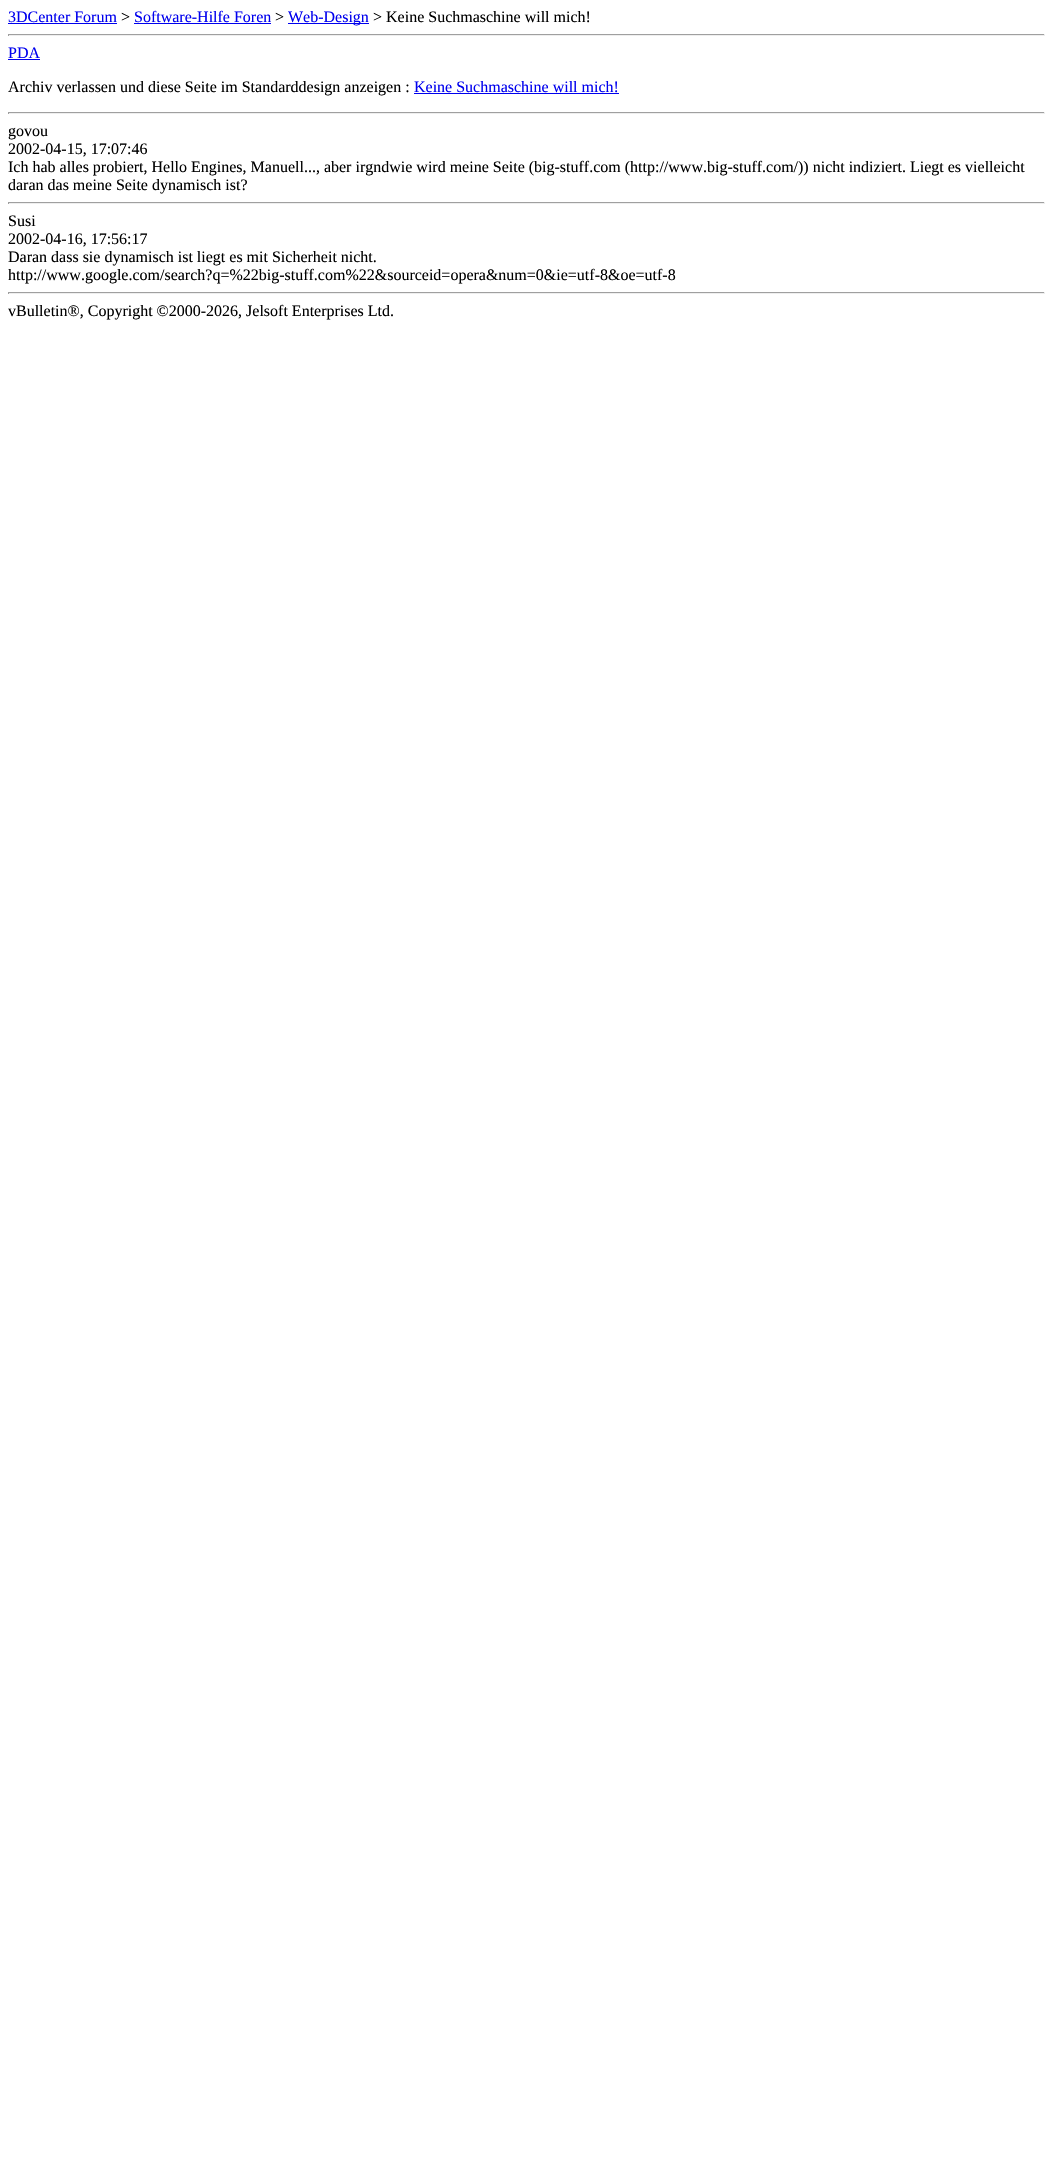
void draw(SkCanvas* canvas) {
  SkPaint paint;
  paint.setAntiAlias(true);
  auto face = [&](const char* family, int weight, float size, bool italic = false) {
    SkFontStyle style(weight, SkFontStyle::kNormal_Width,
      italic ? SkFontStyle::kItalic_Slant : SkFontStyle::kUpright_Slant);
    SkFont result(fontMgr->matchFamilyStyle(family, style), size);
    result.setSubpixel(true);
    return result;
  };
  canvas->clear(0xffffffff);
  {
    const struct { float x, y, w, h; SkColor color; } items[] = {
      {8, 23, 109, 1, 0xff0000ee},
      {134, 23, 137, 1, 0xff0000ee},
      {288, 23, 81, 1, 0xff0000ee},
      {8, 34, 1037, 1, 0xff9f9f9f},
      {1044, 34, 1, 2, 0xffeeeeee},
      {8, 35, 1037, 1, 0xffeeeeee},
      {8, 34, 1, 2, 0xff9f9f9f},
      {8, 59, 32, 1, 0xff0000ee},
      {414, 93, 205, 1, 0xff0000ee},
      {8, 112, 1037, 1, 0xff9f9f9f},
      {1044, 112, 1, 2, 0xffeeeeee},
      {8, 113, 1037, 1, 0xffeeeeee},
      {8, 112, 1, 2, 0xff9f9f9f},
      {8, 202, 1037, 1, 0xff9f9f9f},
      {1044, 202, 1, 2, 0xffeeeeee},
      {8, 203, 1037, 1, 0xffeeeeee},
      {8, 202, 1, 2, 0xff9f9f9f},
      {8, 292, 1037, 1, 0xff9f9f9f},
      {1044, 292, 1, 2, 0xffeeeeee},
      {8, 293, 1037, 1, 0xffeeeeee},
      {8, 292, 1, 2, 0xff9f9f9f},
    };
    for (auto [x, y, w, h, color] : items) {
      paint.setColor(color);
      canvas->drawRect(SkRect::MakeXYWH(x, y, w, h), paint);
    }
  }
  auto f0 = face("Liberation Serif", 400, 16);
  paint.setColor(0xff0000ee);
  canvas->drawString("3DCenter Forum", 8, 22, f0, paint);
  paint.setColor(0xff000000);
  canvas->drawString(">", 121, 22, f0, paint);
  paint.setColor(0xff0000ee);
  canvas->drawString("Software-Hilfe Foren", 134, 22, f0, paint);
  paint.setColor(0xff000000);
  canvas->drawString(">", 275, 22, f0, paint);
  paint.setColor(0xff0000ee);
  canvas->drawString("Web-Design", 288, 22, f0, paint);
  paint.setColor(0xff000000);
  canvas->drawString("> Keine Suchmaschine will mich!", 373, 22, f0, paint);
  paint.setColor(0xff0000ee);
  canvas->drawString("PDA", 8, 58, f0, paint);
  paint.setColor(0xff000000);
  canvas->drawString("Archiv verlassen und diese Seite im Standarddesign anzeigen :", 8, 92, f0, paint);
  paint.setColor(0xff0000ee);
  canvas->drawString("Keine Suchmaschine will mich!", 414, 92, f0, paint);
  paint.setColor(0xff000000);
  {
    const struct { const char* s; float x, y; } items[] = {
      {"govou", 8, 136},
      {"2002-04-15, 17:07:46", 8, 154},
      {"Ich hab alles probiert, Hello Engines, Manuell..., aber irgndwie wird meine Seite (big-stuff.com (http://www.big-stuff.com/)) nicht indiziert. Liegt es vielleicht", 8, 172},
      {"daran das meine Seite dynamisch ist?", 8, 190},
      {"Susi", 8, 226},
      {"2002-04-16, 17:56:17", 8, 244},
      {"Daran dass sie dynamisch ist liegt es mit Sicherheit nicht.", 8, 262},
      {"http://www.google.com/search?q=%22big-stuff.com%22&sourceid=opera&num=0&ie=utf-8&oe=utf-8", 8, 280},
      {"vBulletin®, Copyright ©2000-2026, Jelsoft Enterprises Ltd.", 8, 316},
    };
    for (auto [s, x, y] : items) {
      canvas->drawString(s, x, y, f0, paint);
    }
  }
}
